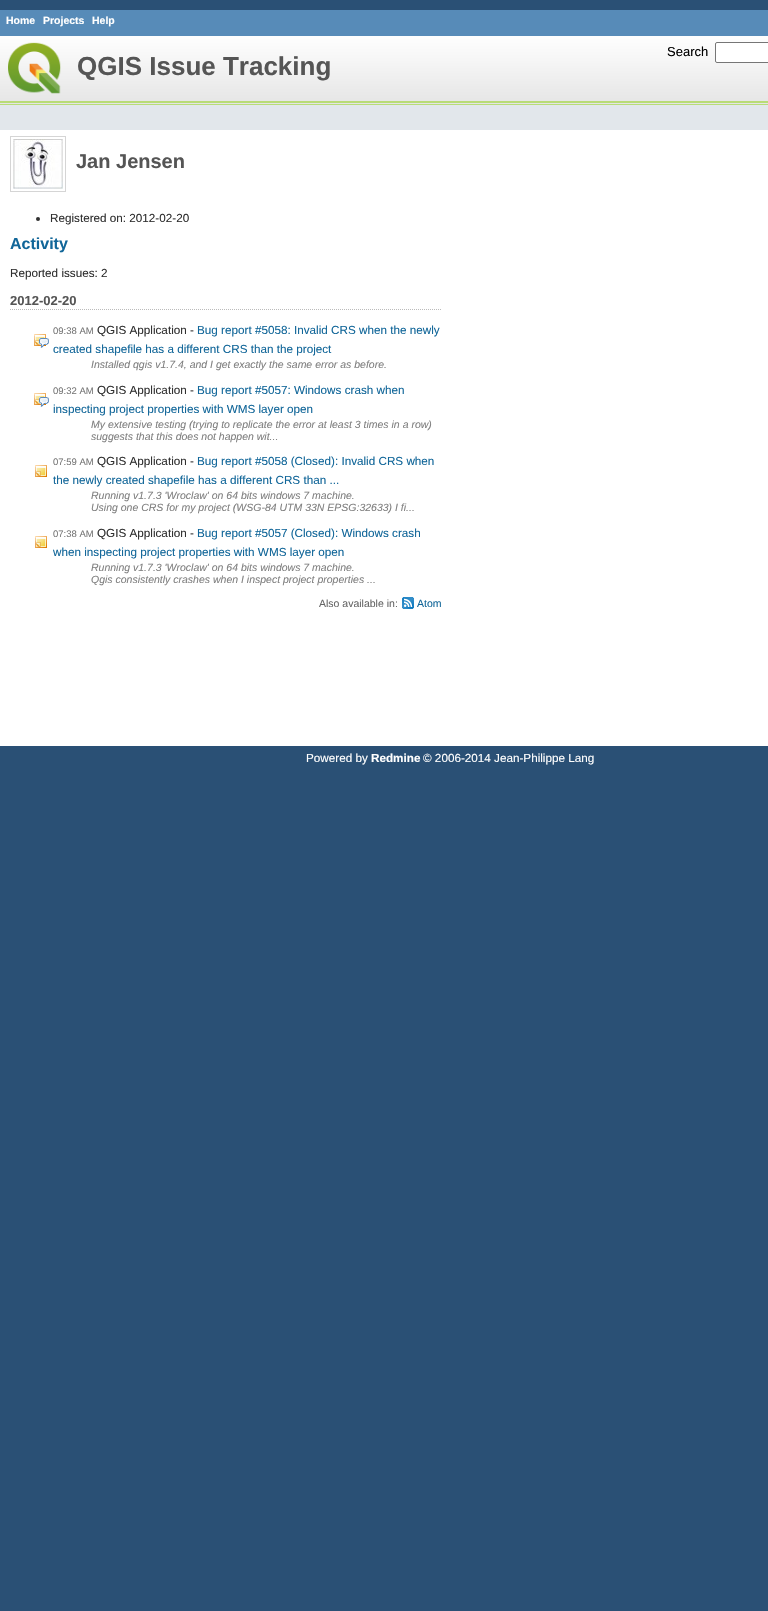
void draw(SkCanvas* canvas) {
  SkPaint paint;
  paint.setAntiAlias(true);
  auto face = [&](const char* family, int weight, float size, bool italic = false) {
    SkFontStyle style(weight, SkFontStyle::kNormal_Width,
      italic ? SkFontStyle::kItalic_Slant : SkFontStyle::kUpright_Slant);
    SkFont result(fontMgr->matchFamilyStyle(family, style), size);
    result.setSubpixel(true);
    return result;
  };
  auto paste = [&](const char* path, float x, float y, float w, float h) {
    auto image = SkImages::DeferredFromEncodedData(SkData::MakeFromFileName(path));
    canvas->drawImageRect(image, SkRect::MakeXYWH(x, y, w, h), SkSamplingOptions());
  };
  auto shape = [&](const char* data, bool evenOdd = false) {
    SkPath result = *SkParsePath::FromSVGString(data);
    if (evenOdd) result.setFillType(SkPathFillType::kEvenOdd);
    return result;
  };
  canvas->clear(0xff2a5075);
  paint.setColor(0xff578bb8);
  canvas->drawRect(SkRect::MakeXYWH(0, 10, 768, 26), paint);
  paint.setColor(0xffe2e7eb);
  canvas->drawRect(SkRect::MakeXYWH(0, 105, 768, 25), paint);
  paste("img/1.png", 0, 36, 768, 69);
  paint.setColor(0xffffffff);
  canvas->drawRoundRect(SkRect::MakeXYWH(715.5f, 42.5f, 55, 20), 1.5f, 1.5f, paint);
  paint.setStroke(true);
  paint.setStrokeWidth(1);
  paint.setColor(0xff767676);
  canvas->drawRoundRect(SkRect::MakeXYWH(715.5f, 42.5f, 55, 20), 1.5f, 1.5f, paint);
  paste("img/2.png", 8, 42, 53, 52);
  paint.setStroke(false);
  paint.setColor(0xffffffff);
  canvas->drawRect(SkRect::MakeXYWH(0, 130, 768, 616), paint);
  paint.setStroke(true);
  paint.setColor(0xffd5d5d5);
  canvas->drawRect(SkRect::MakeXYWH(10.5f, 136.5f, 55, 55), paint);
  paste("img/3.png", 13, 139, 50, 50);
  paint.setStroke(false);
  paint.setColor(0xff303030);
  canvas->drawCircle(38, 219, 2, paint);
  paint.setStroke(true);
  paint.setColor(0xffbbbbbb);
  paint.setPathEffect(SkDashPathEffect::Make({{1, 1}}, 0));
  canvas->drawPath(shape("M10 309.5H441"), paint);
  paint.setPathEffect(nullptr);
  paste("img/4.png", 34, 334, 15, 14);
  paste("img/4.png", 34, 393, 15, 14);
  paste("img/5.png", 35, 465, 12, 12);
  paste("img/5.png", 35, 536, 12, 12);
  paste("img/6.png", 402, 597, 12, 12);
  auto f0 = face("Liberation Sans", 700, 10.5f);
  paint.setStroke(false);
  paint.setColor(0xffffffff);
  {
    const struct { const char* s; float x, y; } items[] = {
      {"Home", 6, 24},
      {"Projects", 43, 24},
      {"Help", 92, 24},
    };
    for (auto [s, x, y] : items) {
      canvas->drawString(s, x, y, f0, paint);
    }
  }
  auto f1 = face("Liberation Sans", 400, 13);
  paint.setColor(0xff000000);
  canvas->drawString("Search", 667, 56, f1, paint);
  auto f2 = face("Liberation Sans", 700, 26);
  paint.setColor(0xff555555);
  canvas->drawString("QGIS Issue Tracking", 77, 75, f2, paint);
  auto f3 = face("Liberation Sans", 700, 20);
  canvas->drawString("Jan Jensen", 76, 168, f3, paint);
  auto f4 = face("Liberation Sans", 400, 11.7f);
  paint.setColor(0xff303030);
  canvas->drawString("Registered on: 2012-02-20", 50, 222, f4, paint);
  auto f5 = face("Liberation Sans", 700, 16);
  paint.setColor(0xff116699);
  canvas->drawString("Activity", 10, 249, f5, paint);
  paint.setColor(0xff303030);
  canvas->drawString("Reported issues: 2", 10, 277, f4, paint);
  auto f6 = face("Liberation Sans", 700, 13);
  paint.setColor(0xff555555);
  canvas->drawString("2012-02-20", 10, 305, f6, paint);
  auto f7 = face("Liberation Sans", 400, 9.5f);
  paint.setColor(0xff777777);
  canvas->drawString("09:38 AM", 53, 334, f7, paint);
  paint.setColor(0xff303030);
  canvas->drawString("QGIS Application -", 97, 334, f4, paint);
  paint.setColor(0xff116699);
  canvas->drawString("Bug report #5058: Invalid CRS when the newly", 197, 334, f4, paint);
  canvas->drawString("created shapefile has a different CRS than the project", 53, 353, f4, paint);
  auto f8 = face("Liberation Sans", 400, 10.5f, true);
  paint.setColor(0xff808080);
  canvas->drawString("Installed qgis v1.7.4, and I get exactly the same error as before.", 91, 368, f8, paint);
  paint.setColor(0xff777777);
  canvas->drawString("09:32 AM", 53, 394, f7, paint);
  paint.setColor(0xff303030);
  canvas->drawString("QGIS Application -", 97, 394, f4, paint);
  paint.setColor(0xff116699);
  canvas->drawString("Bug report #5057: Windows crash when", 197, 394, f4, paint);
  canvas->drawString("inspecting project properties with WMS layer open", 53, 413, f4, paint);
  paint.setColor(0xff808080);
  canvas->drawString("My extensive testing (trying to replicate the error at least 3 times in a row)", 91, 428, f8, paint);
  canvas->drawString("suggests that this does not happen wit...", 91, 440, f8, paint);
  paint.setColor(0xff777777);
  canvas->drawString("07:59 AM", 53, 465, f7, paint);
  paint.setColor(0xff303030);
  canvas->drawString("QGIS Application -", 97, 465, f4, paint);
  paint.setColor(0xff116699);
  canvas->drawString("Bug report #5058 (Closed): Invalid CRS when", 197, 465, f4, paint);
  canvas->drawString("the newly created shapefile has a different CRS than ...", 53, 484, f4, paint);
  paint.setColor(0xff808080);
  canvas->drawString("Running v1.7.3 'Wroclaw' on 64 bits windows 7 machine.", 91, 499, f8, paint);
  canvas->drawString("Using one CRS for my project (WSG-84 UTM 33N EPSG:32633) I fi...", 91, 511, f8, paint);
  paint.setColor(0xff777777);
  canvas->drawString("07:38 AM", 53, 537, f7, paint);
  paint.setColor(0xff303030);
  canvas->drawString("QGIS Application -", 97, 537, f4, paint);
  paint.setColor(0xff116699);
  canvas->drawString("Bug report #5057 (Closed): Windows crash", 197, 537, f4, paint);
  canvas->drawString("when inspecting project properties with WMS layer open", 53, 556, f4, paint);
  paint.setColor(0xff808080);
  canvas->drawString("Running v1.7.3 'Wroclaw' on 64 bits windows 7 machine.", 91, 571, f8, paint);
  canvas->drawString("Qgis consistently crashes when I inspect project properties ...", 91, 583, f8, paint);
  auto f9 = face("Liberation Sans", 400, 10.5f);
  paint.setColor(0xff666666);
  canvas->drawString("Also available in:", 319, 607, f9, paint);
  paint.setColor(0xff116699);
  canvas->drawString("Atom", 417, 607, f9, paint);
  paint.setColor(0xffffffff);
  canvas->drawString("Powered by", 306, 762, f4, paint);
  auto f10 = face("Liberation Sans", 700, 11.7f);
  canvas->drawString("Redmine", 371, 762, f10, paint);
  canvas->drawString("© 2006-2014 Jean-Philippe Lang", 423, 762, f4, paint);
}
